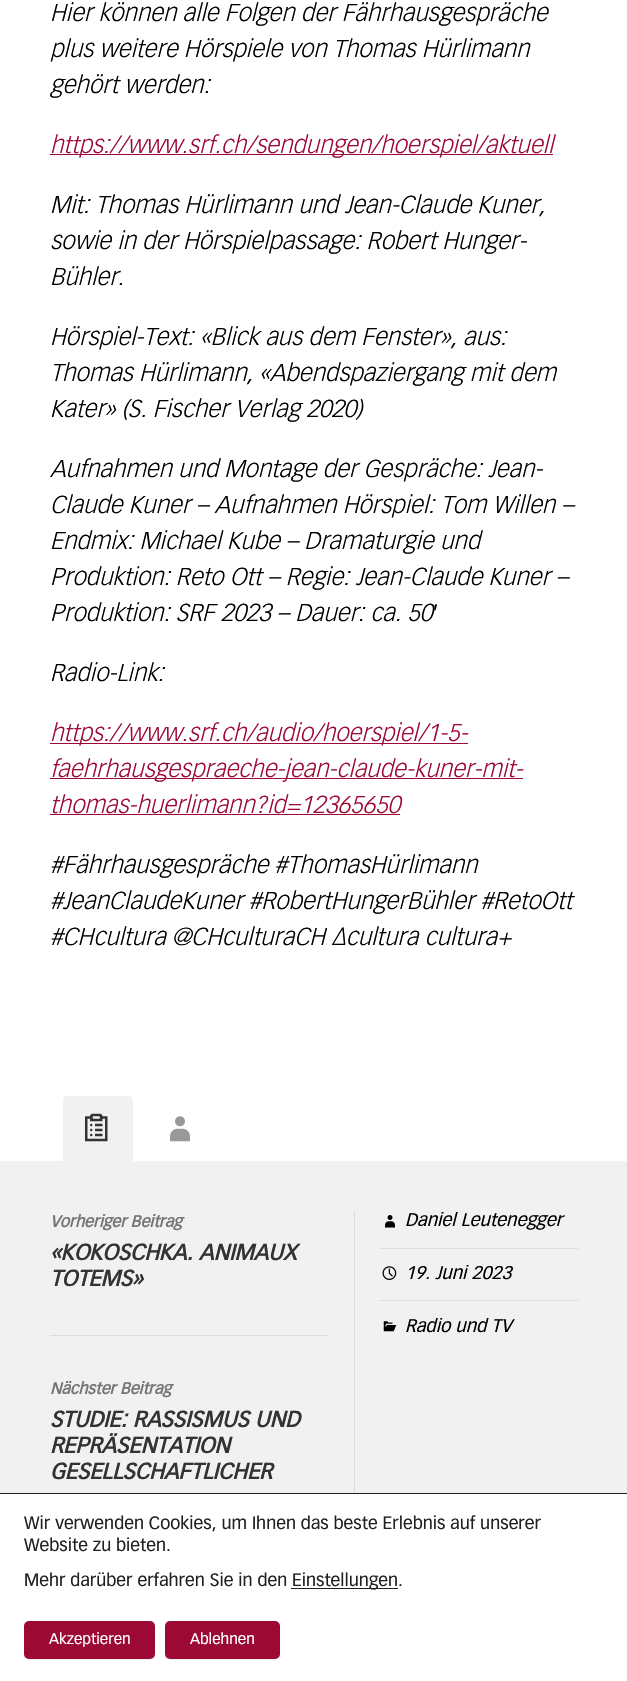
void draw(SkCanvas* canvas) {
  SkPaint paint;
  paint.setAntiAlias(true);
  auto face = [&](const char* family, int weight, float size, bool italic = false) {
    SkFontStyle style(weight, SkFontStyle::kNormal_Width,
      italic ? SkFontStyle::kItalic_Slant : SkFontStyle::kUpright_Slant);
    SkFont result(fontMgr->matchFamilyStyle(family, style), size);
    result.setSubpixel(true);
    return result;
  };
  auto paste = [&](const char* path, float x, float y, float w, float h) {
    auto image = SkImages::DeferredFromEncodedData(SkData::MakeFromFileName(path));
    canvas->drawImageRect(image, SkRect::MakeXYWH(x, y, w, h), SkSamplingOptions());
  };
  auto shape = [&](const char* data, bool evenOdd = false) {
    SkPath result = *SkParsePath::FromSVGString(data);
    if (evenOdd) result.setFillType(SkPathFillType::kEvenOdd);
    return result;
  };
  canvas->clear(0xffffffff);
  {
    const struct { float x, y, w, h; SkColor color; } items[] = {
      {50, 154, 503, 1, 0xff9c0935},
      {50, 743, 418, 1, 0xff9c0935},
      {50, 778, 473, 1, 0xff9c0935},
      {50, 814, 350, 1, 0xff9c0935},
    };
    for (auto [x, y, w, h, color] : items) {
      paint.setColor(color);
      canvas->drawRect(SkRect::MakeXYWH(x, y, w, h), paint);
    }
  }
  paint.setColor(0xfff1f1f1);
  canvas->drawPath(shape("M67 1096H129C131 1096 133 1098 133 1100V1161H63V1100C63 1098 65 1096 67 1096Z"), paint);
  paste("img/1.png", 85, 1113, 23, 29);
  paste("img/2.png", 170, 1116, 20, 26);
  {
    const struct { float x, y, w, h; SkColor color; } items[] = {
      {0, 1161, 627, 332, 0xfff1f1f1},
      {50, 1335, 278, 1, 0xffdddddd},
      {354, 1211, 1, 282, 0xffdddddd},
    };
    for (auto [x, y, w, h, color] : items) {
      paint.setColor(color);
      canvas->drawRect(SkRect::MakeXYWH(x, y, w, h), paint);
    }
  }
  paste("img/3.png", 385, 1215, 10, 13);
  canvas->drawRect(SkRect::MakeXYWH(380, 1248, 198, 1), paint);
  paste("img/4.png", 382, 1266, 15, 14);
  canvas->drawRect(SkRect::MakeXYWH(380, 1300, 198, 1), paint);
  paste("img/5.png", 383, 1321, 14, 11);
  paint.setColor(0xff202020);
  canvas->drawRect(SkRect::MakeXYWH(0, 1493, 627, 1), paint);
  canvas->drawRect(SkRect::MakeXYWH(291, 1588, 107, 1), paint);
  paint.setColor(0xffeeeeee);
  paint.setMaskFilter(SkMaskFilter::MakeBlur(kNormal_SkBlurStyle, 0.5f));
  canvas->drawRoundRect(SkRect::MakeXYWH(24, 1623, 131, 37), 5, 5, paint);
  paint.setMaskFilter(nullptr);
  paint.setColor(0xff9c0935);
  canvas->drawRoundRect(SkRect::MakeXYWH(24, 1621, 131, 38), 5, 5, paint);
  paint.setColor(0xffeeeeee);
  paint.setMaskFilter(SkMaskFilter::MakeBlur(kNormal_SkBlurStyle, 0.5f));
  canvas->drawRoundRect(SkRect::MakeXYWH(165, 1623, 115, 37), 5, 5, paint);
  paint.setMaskFilter(nullptr);
  paint.setColor(0xff9c0935);
  canvas->drawRoundRect(SkRect::MakeXYWH(165, 1621, 115, 38), 5, 5, paint);
  auto f0 = face("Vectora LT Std", 300, 24, true);
  paint.setColor(0xff000000);
  {
    const struct { const char* s; float x, y; } items[] = {
      {"Hier können alle Folgen der Fährhausgespräche", 50, 21},
      {"plus weitere Hörspiele von Thomas Hürlimann", 50, 57},
      {"gehört werden:", 50, 93},
    };
    for (auto [s, x, y] : items) {
      canvas->drawString(s, x, y, f0, paint);
    }
  }
  paint.setColor(0xff9c0935);
  canvas->drawString("https://www.srf.ch/sendungen/hoerspiel/aktuell", 50, 153, f0, paint);
  paint.setColor(0xff000000);
  {
    const struct { const char* s; float x, y; } items[] = {
      {"Mit: Thomas Hürlimann und Jean-Claude Kuner,", 50, 213},
      {"sowie in der Hörspielpassage: Robert Hunger-", 50, 249},
      {"Bühler.", 50, 285},
      {"Hörspiel-Text: «Blick aus dem Fenster», aus:", 50, 345},
      {"Thomas Hürlimann, «Abendspaziergang mit dem", 50, 381},
      {"Kater» (S. Fischer Verlag 2020)", 50, 417},
      {"Aufnahmen und Montage der Gespräche: Jean-", 50, 477},
      {"Claude Kuner – Aufnahmen Hörspiel: Tom Willen –", 50, 513},
      {"Endmix: Michael Kube – Dramaturgie und", 50, 549},
      {"Produktion: Reto Ott – Regie: Jean-Claude Kuner –", 50, 585},
      {"Produktion: SRF 2023 – Dauer: ca. 50", 50, 621},
    };
    for (auto [s, x, y] : items) {
      canvas->drawString(s, x, y, f0, paint);
    }
  }
  auto f1 = face("Liberation Sans", 400, 24, true);
  canvas->drawString("′", 432, 621, f1, paint);
  canvas->drawString("Radio-Link:", 50, 681, f0, paint);
  paint.setColor(0xff9c0935);
  {
    const struct { const char* s; float x, y; } items[] = {
      {"https://www.srf.ch/audio/hoerspiel/1-5-", 50, 741},
      {"faehrhausgespraeche-jean-claude-kuner-mit-", 50, 777},
      {"thomas-huerlimann?id=12365650", 50, 813},
    };
    for (auto [s, x, y] : items) {
      canvas->drawString(s, x, y, f0, paint);
    }
  }
  paint.setColor(0xff000000);
  {
    const struct { const char* s; float x, y; } items[] = {
      {"#Fährhausgespräche #ThomasHürlimann", 50, 873},
      {"#JeanClaudeKuner #RobertHungerBühler #RetoOtt", 50, 909},
      {"#CHcultura @CHculturaCH ∆cultura cultura+", 50, 945},
    };
    for (auto [s, x, y] : items) {
      canvas->drawString(s, x, y, f0, paint);
    }
  }
  auto f2 = face("Vectora LT Std", 700, 16, true);
  paint.setColor(0xff767676);
  canvas->drawString("Vorheriger Beitrag", 50, 1227, f2, paint);
  auto f3 = face("Vectora LT Std", 700, 22, true);
  paint.setColor(0xff333333);
  canvas->drawString("«KOKOSCHKA. ANIMAUX", 50, 1260, f3, paint);
  canvas->drawString("TOTEMS»", 50, 1286, f3, paint);
  paint.setColor(0xff767676);
  canvas->drawString("Nächster Beitrag", 50, 1394, f2, paint);
  paint.setColor(0xff333333);
  {
    const struct { const char* s; float x, y; } items[] = {
      {"STUDIE: RASSISMUS UND", 50, 1427},
      {"REPRÄSENTATION", 50, 1453},
      {"GESELLSCHAFTLICHER", 50, 1479},
    };
    for (auto [s, x, y] : items) {
      canvas->drawString(s, x, y, f3, paint);
    }
  }
  auto f4 = face("Vectora LT Std", 400, 18, true);
  paint.setColor(0xff000000);
  {
    const struct { const char* s; float x, y; } items[] = {
      {"Daniel Leutenegger", 405, 1226},
      {"19. Juni 2023", 405, 1279},
      {"Radio und TV", 405, 1332},
    };
    for (auto [s, x, y] : items) {
      canvas->drawString(s, x, y, f4, paint);
    }
  }
  auto f5 = face("Vectora LT Std", 400, 17.5f);
  paint.setColor(0xff202020);
  {
    const struct { const char* s; float x, y; } items[] = {
      {"Wir verwenden Cookies, um Ihnen das beste Erlebnis auf unserer", 24, 1529},
      {"Website zu bieten.", 24, 1551},
      {"Mehr darüber erfahren Sie in den", 24, 1586},
      {"Einstellungen.", 292, 1586},
    };
    for (auto [s, x, y] : items) {
      canvas->drawString(s, x, y, f5, paint);
    }
  }
  auto f6 = face("Vectora LT Std", 400, 15);
  paint.setColor(0xffffffff);
  canvas->drawString("Akzeptieren", 49, 1644, f6, paint);
  canvas->drawString("Ablehnen", 190, 1644, f6, paint);
}
